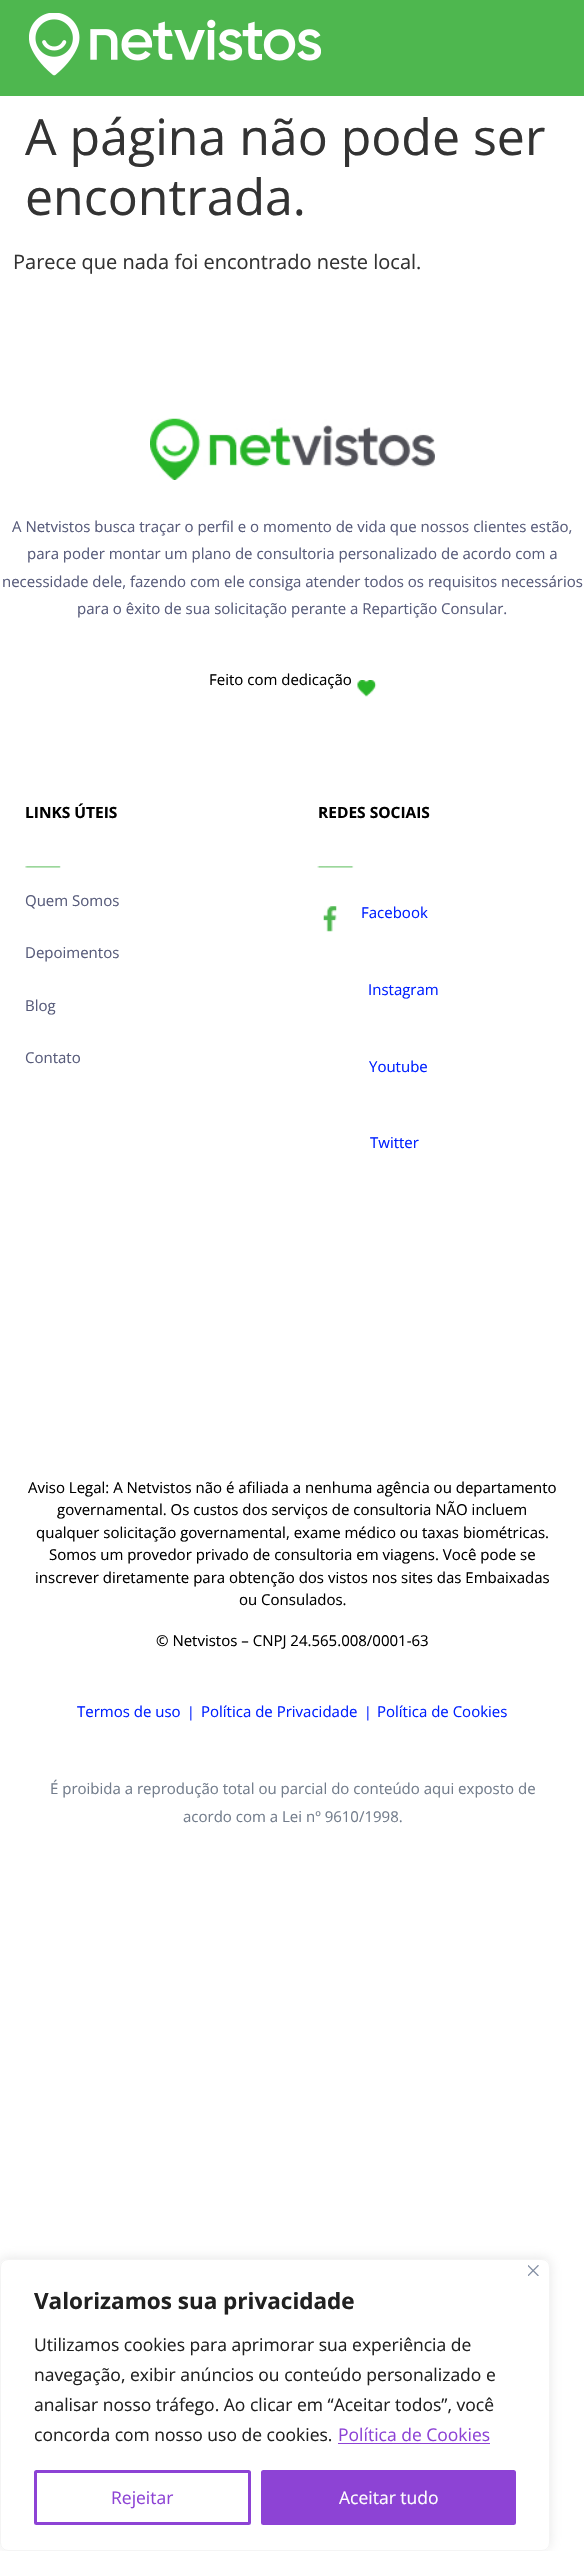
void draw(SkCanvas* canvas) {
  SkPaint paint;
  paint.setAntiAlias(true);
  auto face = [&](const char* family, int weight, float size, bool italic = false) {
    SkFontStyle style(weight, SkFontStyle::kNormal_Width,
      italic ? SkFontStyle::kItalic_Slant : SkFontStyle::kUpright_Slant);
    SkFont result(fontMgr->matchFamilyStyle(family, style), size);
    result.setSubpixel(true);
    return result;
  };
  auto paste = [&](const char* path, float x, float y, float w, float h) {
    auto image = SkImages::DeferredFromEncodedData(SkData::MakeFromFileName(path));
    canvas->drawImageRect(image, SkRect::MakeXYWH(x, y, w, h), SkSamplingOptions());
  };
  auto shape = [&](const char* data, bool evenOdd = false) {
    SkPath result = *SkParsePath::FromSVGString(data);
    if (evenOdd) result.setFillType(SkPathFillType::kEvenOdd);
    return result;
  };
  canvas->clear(0xffffffff);
  paint.setColor(0xff4eb74f);
  canvas->drawRect(SkRect::MakeXYWH(0, 0, 584, 96), paint);
  paste("img/1.png", 29, 13, 292, 63);
  paste("img/2.png", 150, 418, 285, 62);
  paste("img/3.png", 357, 680, 20, 17);
  paste("img/4.png", 25, 866, 36, 2);
  paste("img/5.png", 317, 866, 37, 2);
  paste("img/6.png", 323, 906, 14, 26);
  canvas->save();
  canvas->clipPath(shape("M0 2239H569V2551H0ZM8 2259H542C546.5 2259 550 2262.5 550 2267V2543C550 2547.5 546.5 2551 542 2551H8C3.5 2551 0 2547.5 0 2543V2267C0 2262.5 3.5 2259 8 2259Z", true), true);
  paint.setColor(0x4dacabab);
  paint.setMaskFilter(SkMaskFilter::MakeBlur(kNormal_SkBlurStyle, 6));
  canvas->drawRoundRect(SkRect::MakeXYWH(0, 2258, 550, 292), 8, 8, paint);
  paint.setMaskFilter(nullptr);
  canvas->restore();
  paint.setStroke(true);
  paint.setStrokeWidth(1);
  paint.setColor(0xfff4f4f4);
  canvas->drawRoundRect(SkRect::MakeXYWH(0.5f, 2259.5f, 549, 291), 7.5f, 7.5f, paint);
  paste("img/7.png", 528, 2265, 11, 11);
  paint.setStroke(false);
  paint.setColor(0xff8d43d5);
  canvas->drawRect(SkRect::MakeXYWH(338, 2443, 152, 1), paint);
  paint.setStroke(true);
  paint.setStrokeWidth(3);
  canvas->drawRoundRect(SkRect::MakeXYWH(35.5f, 2471.5f, 214, 52), 1, 1, paint);
  paint.setStroke(false);
  canvas->drawRoundRect(SkRect::MakeXYWH(262.5f, 2471.5f, 252, 52), 1, 1, paint);
  paint.setStroke(true);
  canvas->drawRoundRect(SkRect::MakeXYWH(262.5f, 2471.5f, 252, 52), 1, 1, paint);
  auto f0 = face("Open Sans", 400, 50);
  paint.setStroke(false);
  paint.setColor(0xff333333);
  canvas->drawString("A página não pode ser", 25, 155, f0, paint);
  canvas->drawString("encontrada.", 25, 215, f0, paint);
  auto f1 = face("Open Sans", 400, 20);
  canvas->drawString("Parece que nada foi encontrado neste local.", 13, 269, f1, paint);
  auto f2 = face("Open Sans", 400, 15);
  paint.setColor(0xff585c7b);
  {
    const struct { const char* s; float x, y; } items[] = {
      {"A Netvistos busca traçar o perfil e o momento de vida que nossos clientes estão,", 12, 532},
      {"para poder montar um plano de consultoria personalizado de acordo com a", 27, 559},
      {"necessidade dele, fazendo com ele consiga atender todos os requisitos necessários", 2, 587},
      {"para o êxito de sua solicitação perante a Repartição Consular.", 77, 614},
    };
    for (auto [s, x, y] : items) {
      canvas->drawString(s, x, y, f2, paint);
    }
  }
  paint.setColor(0xff000000);
  canvas->drawString("Feito com dedicação", 209, 685, f2, paint);
  auto f3 = face("Open Sans", 700, 15.5f);
  canvas->drawString("LINKS ÚTEIS", 25, 818, f3, paint);
  paint.setColor(0xff585c7b);
  {
    const struct { const char* s; float x, y; } items[] = {
      {"Quem Somos", 25, 906},
      {"Depoimentos", 25, 958},
      {"Blog", 25, 1011},
      {"Contato", 25, 1063},
    };
    for (auto [s, x, y] : items) {
      canvas->drawString(s, x, y, f2, paint);
    }
  }
  paint.setColor(0xff000000);
  canvas->drawString("REDES SOCIAIS", 318, 818, f3, paint);
  paint.setColor(0xff0020ff);
  {
    const struct { const char* s; float x, y; } items[] = {
      {"Facebook", 361, 918},
      {"Instagram", 368, 995},
      {"Youtube", 369, 1072},
      {"Twitter", 370, 1148},
    };
    for (auto [s, x, y] : items) {
      canvas->drawString(s, x, y, f2, paint);
    }
  }
  paint.setColor(0xff000000);
  {
    const struct { const char* s; float x, y; } items[] = {
      {"Aviso Legal: A Netvistos não é afiliada a nenhuma agência ou departamento", 28, 1493},
      {"governamental. Os custos dos serviços de consultoria NÃO incluem", 57, 1515},
      {"qualquer solicitação governamental, exame médico ou taxas biométricas.", 36, 1538},
      {"Somos um provedor privado de consultoria em viagens. Você pode se", 49, 1560},
      {"inscrever diretamente para obtenção dos vistos nos sites das Embaixadas", 35, 1583},
      {"ou Consulados.", 239, 1605},
      {"© Netvistos – CNPJ 24.565.008/0001-63", 156, 1646},
    };
    for (auto [s, x, y] : items) {
      canvas->drawString(s, x, y, f2, paint);
    }
  }
  paint.setColor(0xff0020ff);
  canvas->drawString("Termos de uso", 77, 1717, f2, paint);
  auto f4 = face("Open Sans", 400, 14);
  canvas->drawString("|", 187, 1717, f4, paint);
  canvas->drawString("Política de Privacidade", 201, 1717, f2, paint);
  canvas->drawString("|", 364, 1717, f4, paint);
  canvas->drawString("Política de Cookies", 377, 1717, f2, paint);
  paint.setColor(0xff737d8c);
  canvas->drawString("É proibida a reprodução total ou parcial do conteúdo aqui exposto de", 50, 1794, f2, paint);
  canvas->drawString("acordo com a Lei nº 9610/1998.", 183, 1822, f2, paint);
  auto f5 = face("Open Sans", 700, 22.5f);
  paint.setColor(0xff212121);
  canvas->drawString("Valorizamos sua privacidade", 34, 2309, f5, paint);
  auto f6 = face("Open Sans", 400, 17.5f);
  {
    const struct { const char* s; float x, y; } items[] = {
      {"Utilizamos cookies para aprimorar sua experiência de", 34, 2351},
      {"navegação, exibir anúncios ou conteúdo personalizado e", 34, 2381},
      {"analisar nosso tráfego. Ao clicar em “Aceitar todos”, você", 34, 2411},
      {"concorda com nosso uso de cookies.", 34, 2441},
    };
    for (auto [s, x, y] : items) {
      canvas->drawString(s, x, y, f6, paint);
    }
  }
  paint.setColor(0xff8d43d5);
  canvas->drawString("Política de Cookies", 338, 2441, f6, paint);
  canvas->drawString("Rejeitar", 111, 2504, f6, paint);
  paint.setColor(0xffffffff);
  canvas->drawString("Aceitar tudo", 339, 2504, f6, paint);
}
